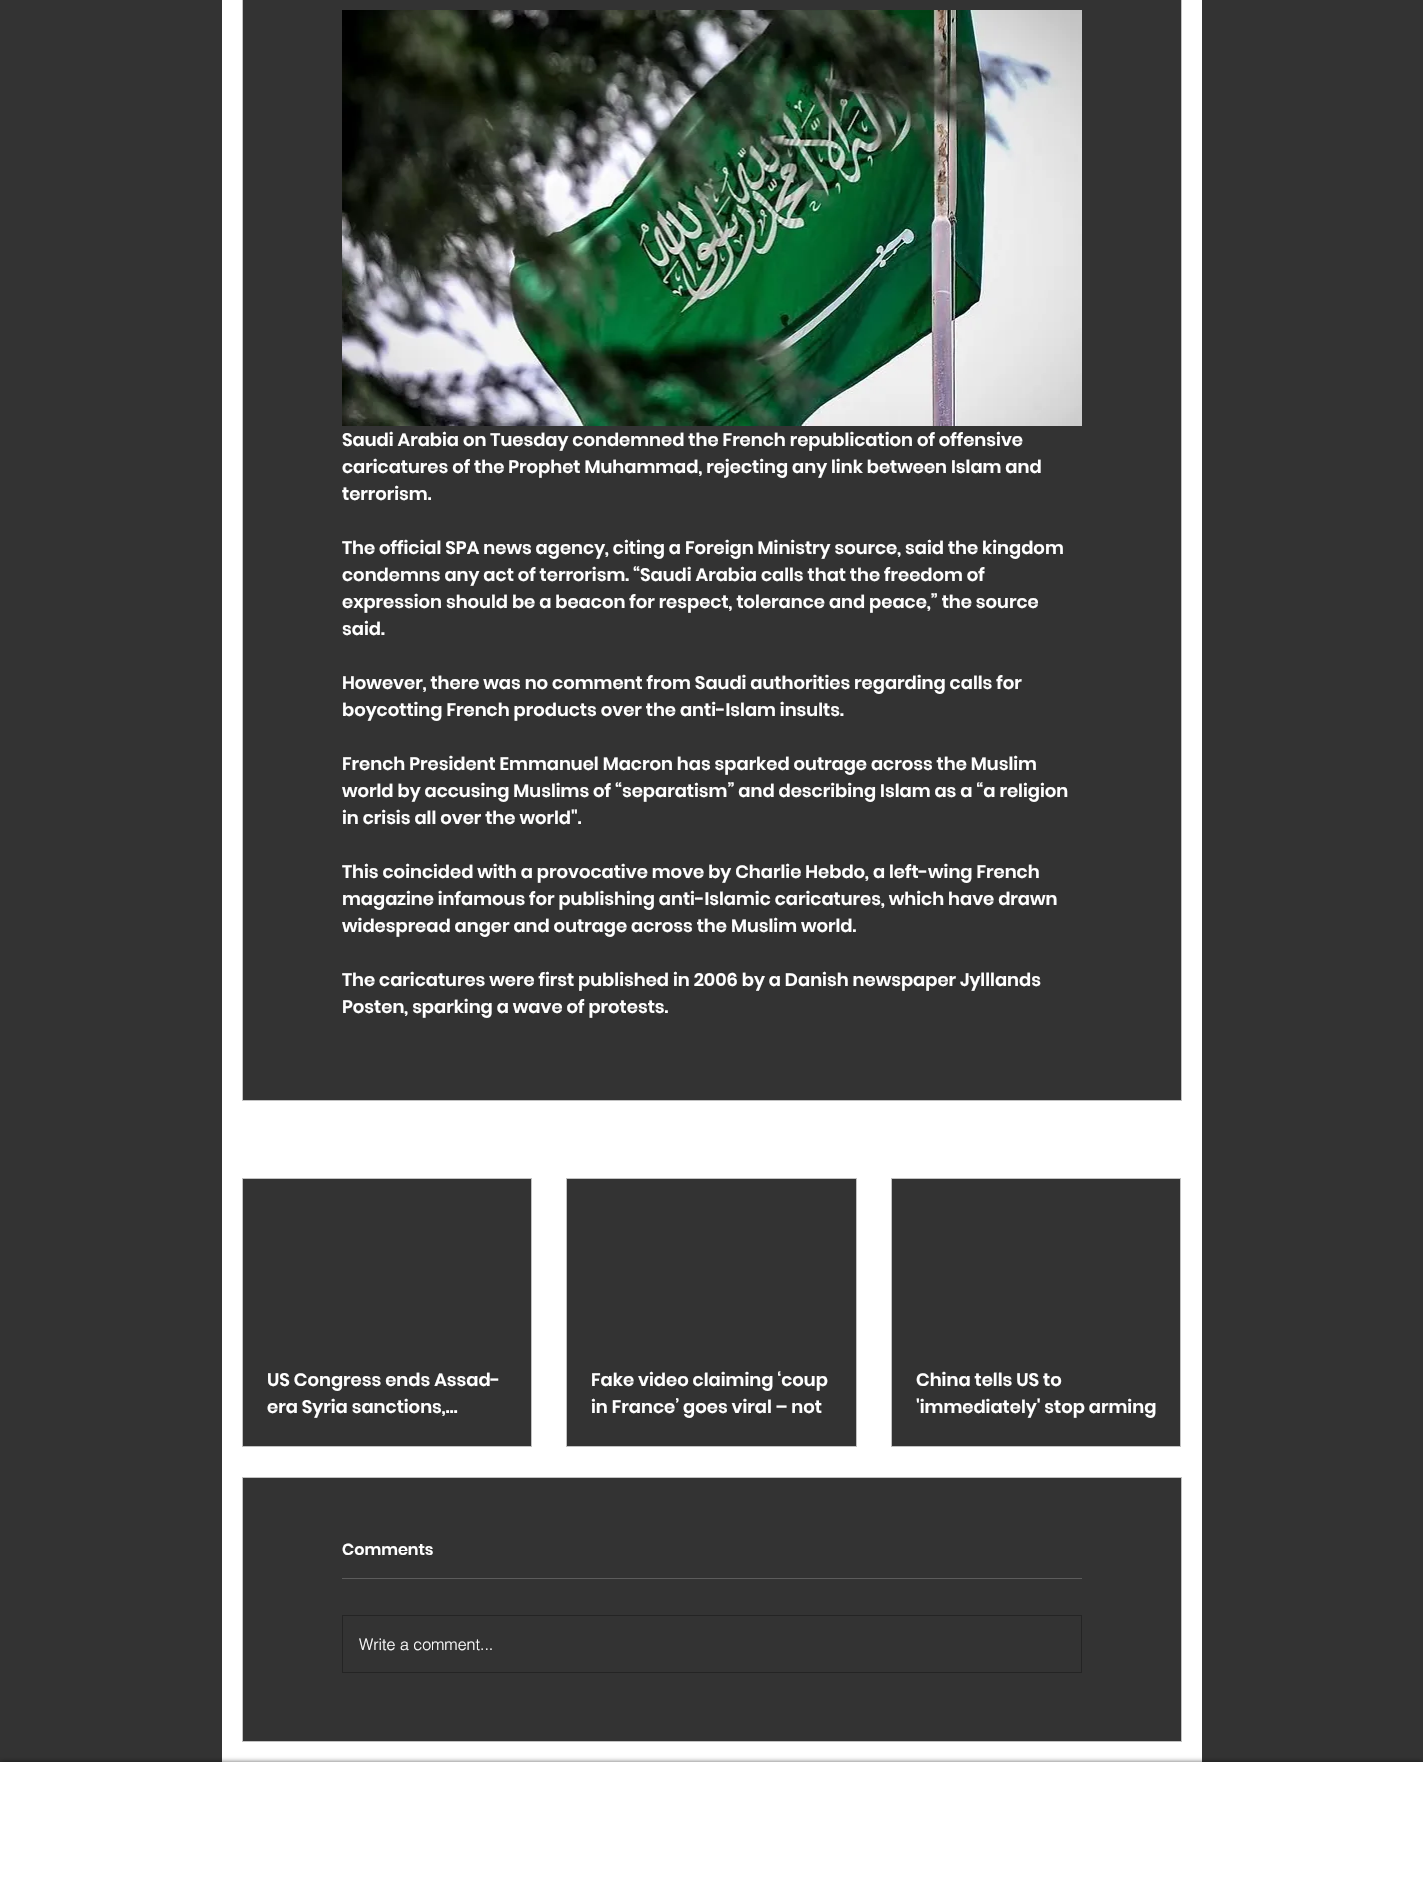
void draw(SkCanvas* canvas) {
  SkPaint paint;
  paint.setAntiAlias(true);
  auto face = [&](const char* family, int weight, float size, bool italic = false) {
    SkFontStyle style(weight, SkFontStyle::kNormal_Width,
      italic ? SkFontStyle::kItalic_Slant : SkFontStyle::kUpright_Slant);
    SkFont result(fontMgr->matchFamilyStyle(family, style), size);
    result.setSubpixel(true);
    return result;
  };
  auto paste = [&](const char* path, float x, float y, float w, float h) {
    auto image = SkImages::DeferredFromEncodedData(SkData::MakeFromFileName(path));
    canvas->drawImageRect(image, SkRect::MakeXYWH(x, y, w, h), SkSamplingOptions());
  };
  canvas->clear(0xff333333);
  paint.setColor(0xffffffff);
  canvas->drawRect(SkRect::MakeXYWH(222, 0, 980, 1762), paint);
  paint.setColor(0xff333333);
  canvas->drawRect(SkRect::MakeXYWH(242.5f, -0.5f, 939, 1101), paint);
  paint.setStroke(true);
  paint.setStrokeWidth(1);
  paint.setColor(0xffc2c2c2);
  canvas->drawRect(SkRect::MakeXYWH(242.5f, -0.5f, 939, 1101), paint);
  paste("img/1.png", 342, 10, 740, 416);
  paint.setStroke(false);
  paint.setColor(0xff333333);
  canvas->drawRect(SkRect::MakeXYWH(242.5f, 1178.5f, 289, 268), paint);
  paint.setStroke(true);
  paint.setColor(0xffc2c2c2);
  canvas->drawRect(SkRect::MakeXYWH(242.5f, 1178.5f, 289, 268), paint);
  paint.setStroke(false);
  paint.setColor(0xff333333);
  canvas->drawRect(SkRect::MakeXYWH(566.5f, 1178.5f, 290, 268), paint);
  paint.setStroke(true);
  paint.setColor(0xffc2c2c2);
  canvas->drawRect(SkRect::MakeXYWH(566.5f, 1178.5f, 290, 268), paint);
  paint.setStroke(false);
  paint.setColor(0xff333333);
  canvas->drawRect(SkRect::MakeXYWH(891.5f, 1178.5f, 289, 268), paint);
  paint.setStroke(true);
  paint.setColor(0xffc2c2c2);
  canvas->drawRect(SkRect::MakeXYWH(891.5f, 1178.5f, 289, 268), paint);
  paint.setStroke(false);
  paint.setColor(0xff333333);
  canvas->drawRect(SkRect::MakeXYWH(242.5f, 1477.5f, 939, 264), paint);
  paint.setStroke(true);
  paint.setColor(0xffc2c2c2);
  canvas->drawRect(SkRect::MakeXYWH(242.5f, 1477.5f, 939, 264), paint);
  paint.setStroke(false);
  paint.setColor(0xff5c5c5c);
  canvas->drawRect(SkRect::MakeXYWH(342, 1578, 740, 1), paint);
  paint.setStroke(true);
  paint.setColor(0xff242424);
  canvas->drawRect(SkRect::MakeXYWH(342.5f, 1615.5f, 739, 57), paint);
  paint.setStroke(false);
  paint.setColor(0x99000000);
  paint.setMaskFilter(SkMaskFilter::MakeBlur(kNormal_SkBlurStyle, 2.5f));
  canvas->drawRect(SkRect::MakeXYWH(0, 1762, 1423, 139), paint);
  paint.setMaskFilter(nullptr);
  paint.setColor(0xffffffff);
  canvas->drawRect(SkRect::MakeXYWH(0, 1762, 1423, 131), paint);
  auto f0 = face("Poppins", 600, 18);
  {
    const struct { const char* s; float x, y; } items[] = {
      {"Saudi Arabia on Tuesday condemned the French republication of offensive", 342, 446},
      {"caricatures of the Prophet Muhammad, rejecting any link between Islam and", 342, 473},
      {"terrorism.", 342, 500},
      {"The official SPA news agency, citing a Foreign Ministry source, said the kingdom", 342, 554},
      {"condemns any act of terrorism. “Saudi Arabia calls that the freedom of", 342, 581},
      {"expression should be a beacon for respect, tolerance and peace,” the source", 342, 608},
      {"said.", 342, 635},
      {"However, there was no comment from Saudi authorities regarding calls for", 342, 689},
      {"boycotting French products over the anti-Islam insults.", 342, 716},
      {"French President Emmanuel Macron has sparked outrage across the Muslim", 342, 770},
      {"world by accusing Muslims of “separatism” and describing Islam as a “a religion", 342, 797},
      {"in crisis all over the world\".", 342, 824},
      {"This coincided with a provocative move by Charlie Hebdo, a left-wing French", 342, 878},
      {"magazine infamous for publishing anti-Islamic caricatures, which have drawn", 342, 905},
      {"widespread anger and outrage across the Muslim world.", 342, 932},
      {"The caricatures were first published in 2006 by a Danish newspaper Jylllands", 342, 986},
      {"Posten, sparking a wave of protests.", 342, 1013},
      {"US Congress ends Assad-", 267, 1386},
      {"era Syria sanctions,…", 267, 1413},
      {"Fake video claiming ‘coup", 591, 1386},
      {"in France’ goes viral – not", 591, 1413},
      {"China tells US to", 916, 1386},
      {"'immediately' stop arming", 916, 1413},
    };
    for (auto [s, x, y] : items) {
      canvas->drawString(s, x, y, f0, paint);
    }
  }
  auto f1 = face("Poppins", 600, 16);
  canvas->drawString("Comments", 342, 1555, f1, paint);
  auto f2 = face("helvetica", 300, 16);
  canvas->drawString("Write a comment...", 359, 1650, f2, paint);
}
